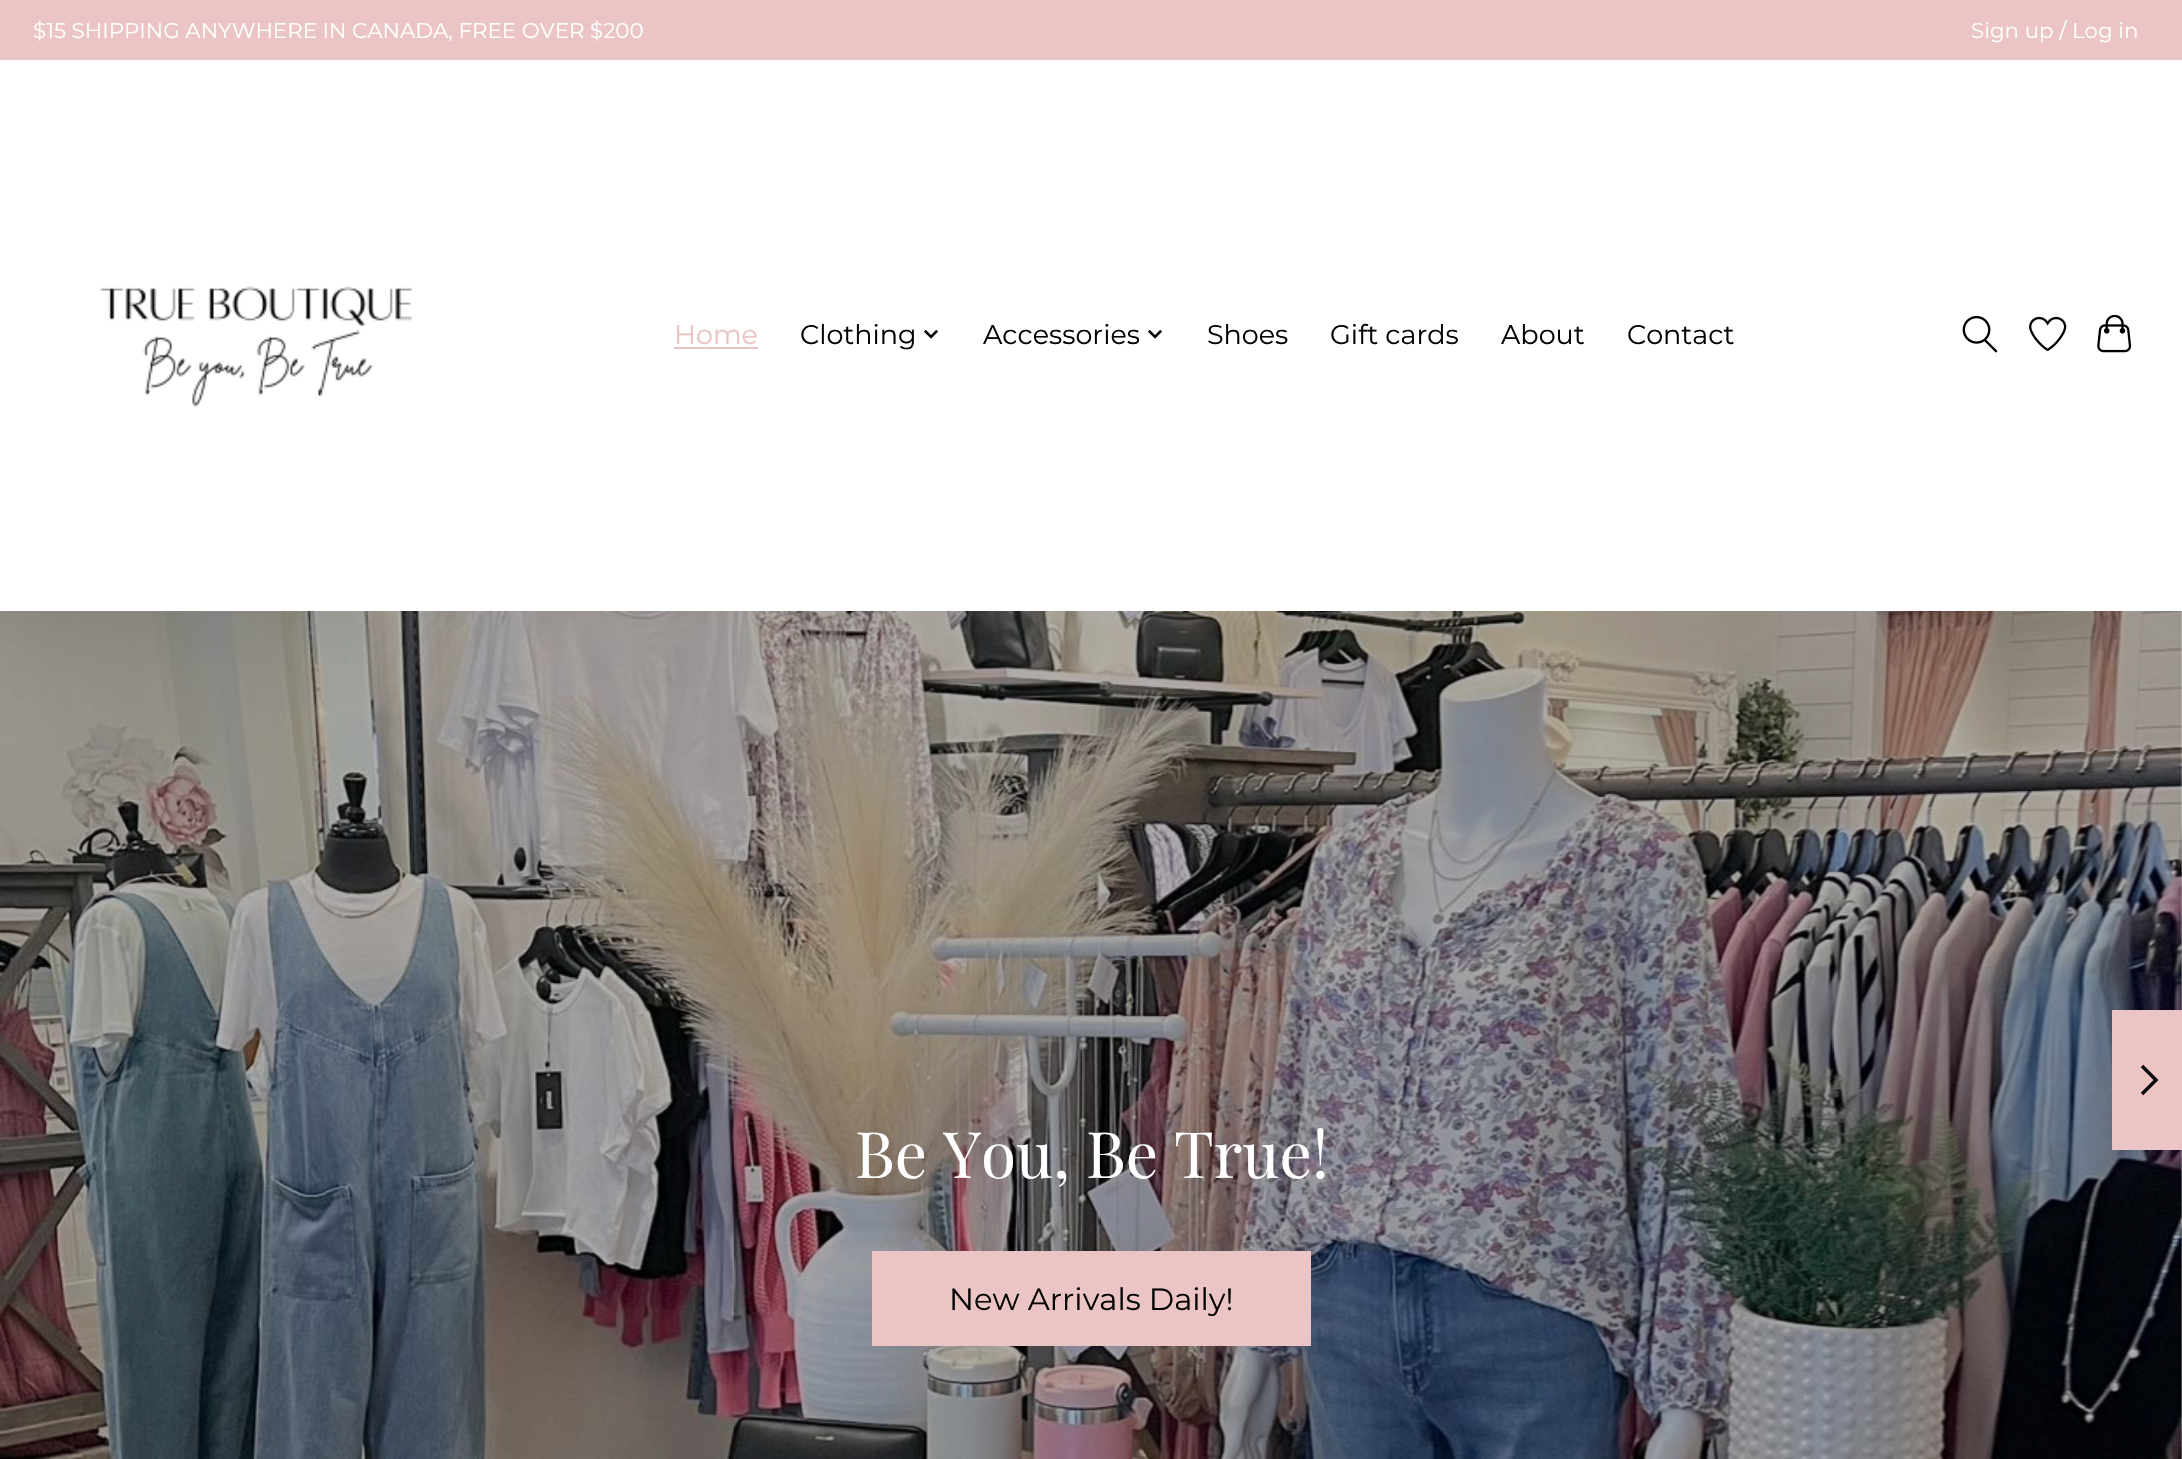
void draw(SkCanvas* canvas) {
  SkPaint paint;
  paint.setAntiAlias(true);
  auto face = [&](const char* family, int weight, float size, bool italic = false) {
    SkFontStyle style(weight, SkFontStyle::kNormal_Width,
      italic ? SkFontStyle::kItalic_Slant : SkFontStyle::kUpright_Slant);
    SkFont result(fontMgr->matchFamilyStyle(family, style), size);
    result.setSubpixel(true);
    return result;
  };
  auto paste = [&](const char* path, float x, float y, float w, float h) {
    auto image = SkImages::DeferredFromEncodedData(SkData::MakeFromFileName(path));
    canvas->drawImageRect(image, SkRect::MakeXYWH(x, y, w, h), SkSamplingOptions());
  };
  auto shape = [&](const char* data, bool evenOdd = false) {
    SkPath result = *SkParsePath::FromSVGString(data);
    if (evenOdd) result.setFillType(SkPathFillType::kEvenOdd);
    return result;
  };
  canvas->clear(0xffffffff);
  paint.setColor(0xffebc5c5);
  canvas->drawRect(SkRect::MakeXYWH(0, 0, 2182, 60), paint);
  paste("img/1.png", 99, 286, 314, 121);
  canvas->drawRect(SkRect::MakeXYWH(674, 347, 84, 2), paint);
  paste("img/2.png", 924, 329, 14, 10);
  paste("img/2.png", 1148, 329, 14, 10);
  paste("img/3.png", 1962, 315, 36, 38);
  paste("img/4.png", 2029, 316, 38, 36);
  paste("img/5.png", 2097, 315, 35, 38);
  paste("img/6.png", 0, 611, 2182, 848);
  canvas->drawRect(SkRect::MakeXYWH(2112, 1010, 70, 140), paint);
  paint.setStroke(true);
  paint.setStrokeWidth(3.5f);
  paint.setColor(0xff090909);
  canvas->drawPath(shape("M2142 1094L2156 1080L2142 1066"), paint);
  paint.setStroke(false);
  paint.setColor(0xffebc5c5);
  canvas->drawRect(SkRect::MakeXYWH(872, 1251, 439, 95), paint);
  auto f0 = face("Montserrat", 400, 21.4f);
  paint.setColor(0xffffffff);
  canvas->drawString("$15 SHIPPING ANYWHERE IN CANADA, FREE OVER $200", 33, 38, f0, paint);
  canvas->drawString("Sign up / Log in", 1971, 38, f0, paint);
  auto f1 = face("Montserrat", 400, 27);
  paint.setColor(0xffebc5c5);
  canvas->drawString("Home", 674, 344, f1, paint);
  paint.setColor(0xff040202);
  {
    const struct { const char* s; float x, y; } items[] = {
      {"Clothing", 800, 344},
      {"Accessories", 983, 344},
      {"Shoes", 1207, 344},
      {"Gift cards", 1330, 344},
      {"About", 1501, 344},
      {"Contact", 1627, 344},
    };
    for (auto [s, x, y] : items) {
      canvas->drawString(s, x, y, f1, paint);
    }
  }
  auto f2 = face("Playfair Display", 400, 64);
  paint.setColor(0xffffffff);
  canvas->drawString("Be You, Be True!", 855, 1178, f2, paint);
  auto f3 = face("Montserrat", 400, 30.75f);
  paint.setColor(0xff040202);
  canvas->drawString("New Arrivals Daily!", 949, 1310, f3, paint);
}
